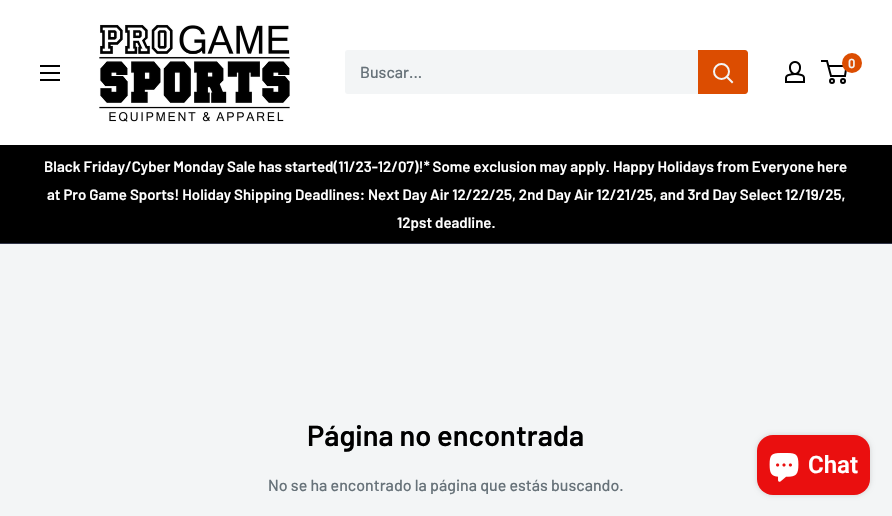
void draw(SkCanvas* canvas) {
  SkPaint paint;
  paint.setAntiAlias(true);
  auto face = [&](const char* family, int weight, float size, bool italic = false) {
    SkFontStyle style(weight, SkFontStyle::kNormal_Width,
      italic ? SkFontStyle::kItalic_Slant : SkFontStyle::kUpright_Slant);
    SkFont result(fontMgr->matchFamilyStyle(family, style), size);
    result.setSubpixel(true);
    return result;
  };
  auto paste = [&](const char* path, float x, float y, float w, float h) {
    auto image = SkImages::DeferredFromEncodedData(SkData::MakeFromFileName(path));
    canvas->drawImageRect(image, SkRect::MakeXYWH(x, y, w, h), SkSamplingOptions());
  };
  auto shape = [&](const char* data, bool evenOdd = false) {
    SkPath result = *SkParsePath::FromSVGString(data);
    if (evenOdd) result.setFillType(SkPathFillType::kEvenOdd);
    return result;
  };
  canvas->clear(0xfff3f5f6);
  paint.setColor(0xffffffff);
  canvas->drawRect(SkRect::MakeXYWH(0, 0, 892, 145), paint);
  paste("img/1.png", 99, 24, 191, 98);
  paste("img/2.png", 785, 61, 20, 22);
  paint.setStroke(true);
  paint.setStrokeWidth(2);
  paint.setColor(0xff000000);
  canvas->drawCircle(832, 81, 2, paint);
  canvas->drawCircle(843, 81, 2, paint);
  canvas->drawPath(shape("M828.5 66H846.5L845 76H831L827 61H821"), paint);
  paint.setStroke(false);
  paint.setColor(0xffdc4d01);
  canvas->drawCircle(852, 63, 10, paint);
  paste("img/3.png", 40, 65, 20, 16);
  paint.setColor(0xfff3f5f6);
  canvas->drawRoundRect(SkRect::MakeXYWH(345, 50, 403, 44), 3, 3, paint);
  paint.setColor(0xffdc4d01);
  canvas->drawPath(shape("M698 50H745C746.5 50 748 51.5 748 53V91C748 92.5 746.5 94 745 94H698Z"), paint);
  paint.setStroke(true);
  paint.setStrokeCap(SkPaint::kSquare_Cap);
  paint.setColor(0xfff3f5f6);
  canvas->drawPath(shape("M732 82L727 77"), paint);
  paint.setStrokeCap(SkPaint::kButt_Cap);
  canvas->drawCircle(721.5f, 71.5f, 7.5f, paint);
  paint.setStroke(false);
  paint.setColor(0xff000000);
  canvas->drawRect(SkRect::MakeXYWH(0, 145, 892, 98), paint);
  paint.setColor(0xff313548);
  canvas->drawRect(SkRect::MakeXYWH(0, 243, 892, 1), paint);
  paint.setColor(0x26000000);
  paint.setMaskFilter(SkMaskFilter::MakeBlur(kNormal_SkBlurStyle, 2.5f));
  canvas->drawRoundRect(SkRect::MakeXYWH(757, 435, 113, 60), 16, 16, paint);
  paint.setMaskFilter(nullptr);
  paint.setColor(0xffea0f0f);
  canvas->drawRoundRect(SkRect::MakeXYWH(757, 435, 113, 60), 16, 16, paint);
  paste("img/4.png", 769, 453, 30, 29);
  auto f0 = face("Barlow", 600, 13);
  paint.setColor(0xfff3f5f6);
  canvas->drawString("0", 848, 68, f0, paint);
  auto f1 = face("Barlow", 500, 16);
  paint.setColor(0xff677279);
  canvas->drawString("Buscar...", 360, 78, f1, paint);
  auto f2 = face("Barlow", 600, 15);
  paint.setColor(0xffffffff);
  {
    const struct { const char* s; float x, y; } items[] = {
      {"Black Friday/Cyber Monday Sale has started(11/23-12/07)!* Some exclusion may apply. Happy Holidays from Everyone here", 44, 172},
      {"at Pro Game Sports! Holiday Shipping Deadlines: Next Day Air 12/22/25, 2nd Day Air 12/21/25, and 3rd Day Select 12/19/25,", 47, 200},
      {"12pst deadline.", 397, 228},
    };
    for (auto [s, x, y] : items) {
      canvas->drawString(s, x, y, f2, paint);
    }
  }
  auto f3 = face("Barlow", 600, 29);
  paint.setColor(0xff000000);
  canvas->drawString("Página no encontrada", 307, 446, f3, paint);
  paint.setColor(0xff677279);
  canvas->drawString("No se ha encontrado la página que estás buscando.", 268, 491, f1, paint);
  auto f4 = face("Roboto", 600, 24);
  paint.setColor(0xffffffff);
  canvas->drawString("Chat", 808, 473, f4, paint);
}
